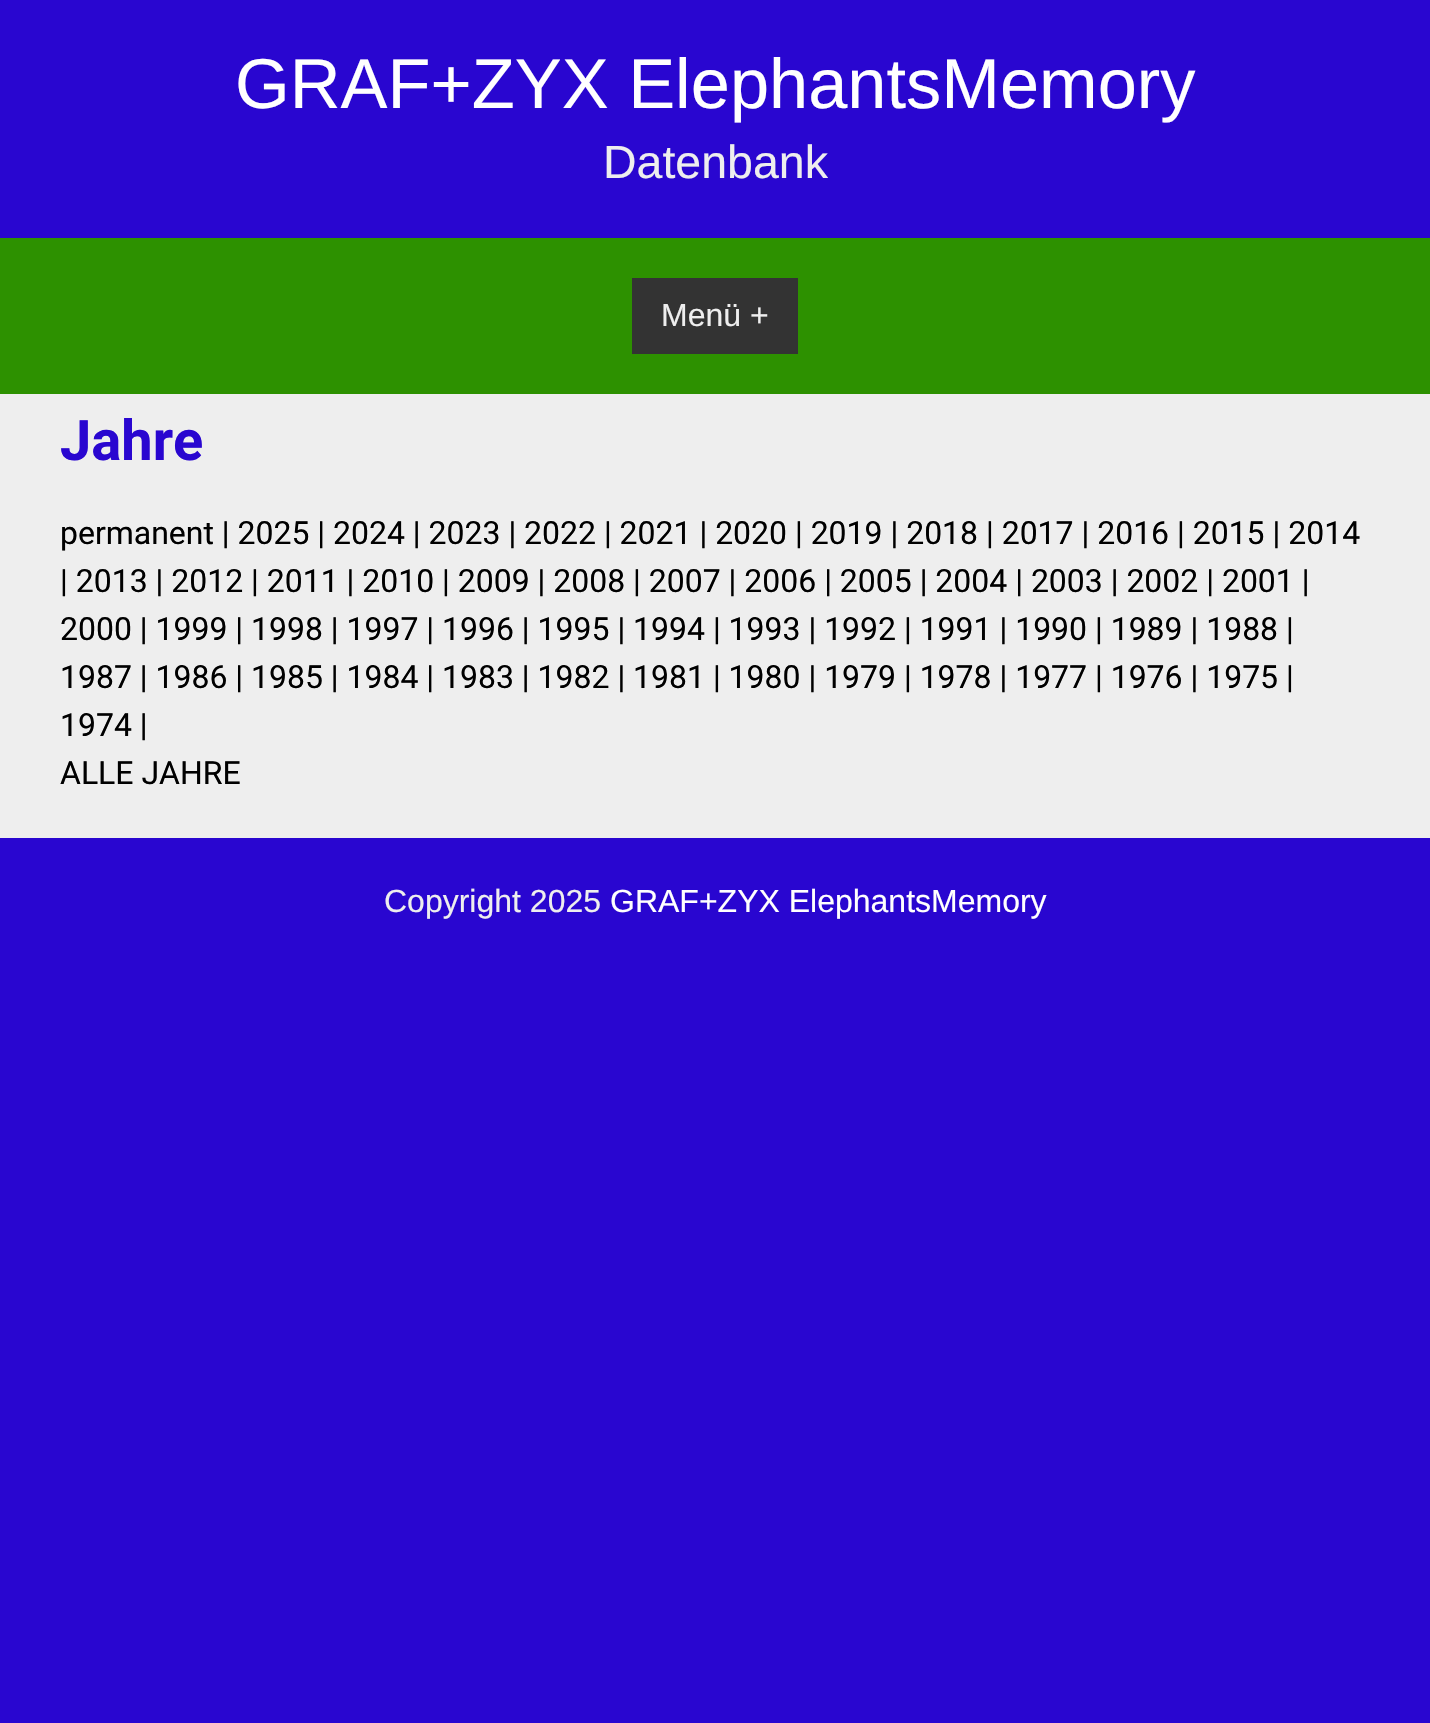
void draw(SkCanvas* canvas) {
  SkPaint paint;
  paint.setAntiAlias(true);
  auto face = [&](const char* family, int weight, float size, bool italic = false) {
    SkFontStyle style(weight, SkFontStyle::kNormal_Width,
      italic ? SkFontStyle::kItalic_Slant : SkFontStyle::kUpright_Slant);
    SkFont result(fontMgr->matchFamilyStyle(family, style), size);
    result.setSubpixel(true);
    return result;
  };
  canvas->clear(0xff2906d0);
  {
    const struct { float x, y, w, h; SkColor color; } items[] = {
      {0, 238, 1430, 156, 0xff2d9100},
      {632, 278, 166, 76, 0xff333333},
      {0, 394, 1430, 444, 0xffeeeeee},
    };
    for (auto [x, y, w, h, color] : items) {
      paint.setColor(color);
      canvas->drawRect(SkRect::MakeXYWH(x, y, w, h), paint);
    }
  }
  auto f0 = face("Liberation Sans", 400, 70.4f);
  paint.setColor(0xffffffff);
  canvas->drawString("GRAF+ZYX ElephantsMemory", 235, 108, f0, paint);
  auto f1 = face("Liberation Sans", 400, 46.5f);
  paint.setColor(0xffeeeeee);
  canvas->drawString("Datenbank", 603, 178, f1, paint);
  auto f2 = face("Liberation Sans", 400, 32);
  canvas->drawString("Menü +", 661, 326, f2, paint);
  auto f3 = face("Roboto", 700, 56);
  paint.setColor(0xff2906d0);
  canvas->drawString("Jahre", 60, 460, f3, paint);
  auto f4 = face("Roboto", 400, 32);
  paint.setColor(0xff000000);
  {
    const struct { const char* s; float x, y; } items[] = {
      {"permanent | 2025 | 2024 | 2023 | 2022 | 2021 | 2020 | 2019 | 2018 | 2017 | 2016 | 2015 | 2014", 60, 544},
      {"| 2013 | 2012 | 2011 | 2010 | 2009 | 2008 | 2007 | 2006 | 2005 | 2004 | 2003 | 2002 | 2001 |", 60, 592},
      {"2000 | 1999 | 1998 | 1997 | 1996 | 1995 | 1994 | 1993 | 1992 | 1991 | 1990 | 1989 | 1988 |", 60, 640},
      {"1987 | 1986 | 1985 | 1984 | 1983 | 1982 | 1981 | 1980 | 1979 | 1978 | 1977 | 1976 | 1975 |", 60, 688},
      {"1974 |", 60, 736},
      {"ALLE JAHRE", 60, 784},
    };
    for (auto [s, x, y] : items) {
      canvas->drawString(s, x, y, f4, paint);
    }
  }
  paint.setColor(0xffeeeeee);
  canvas->drawString("Copyright 2025", 384, 912, f2, paint);
  paint.setColor(0xffffffff);
  canvas->drawString("GRAF+ZYX ElephantsMemory", 610, 912, f2, paint);
}
